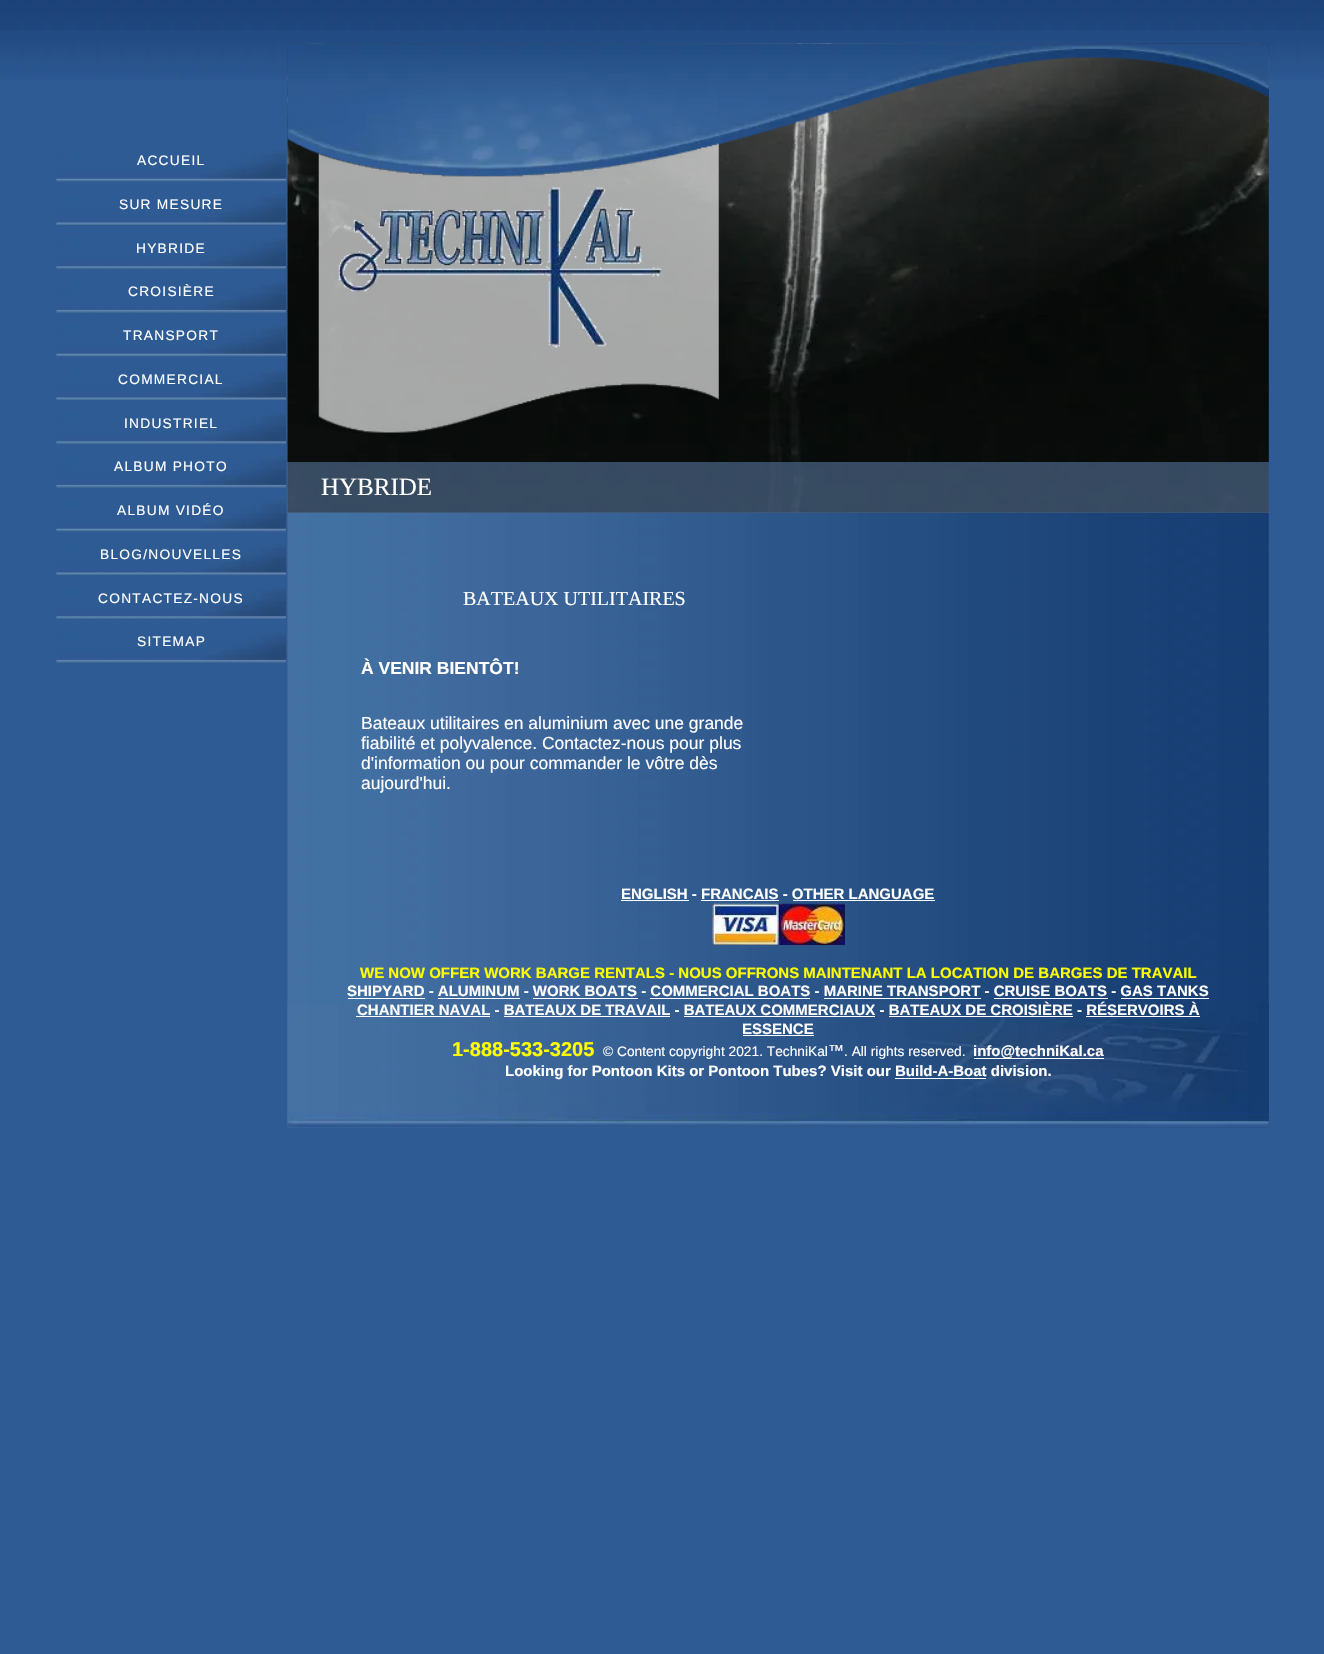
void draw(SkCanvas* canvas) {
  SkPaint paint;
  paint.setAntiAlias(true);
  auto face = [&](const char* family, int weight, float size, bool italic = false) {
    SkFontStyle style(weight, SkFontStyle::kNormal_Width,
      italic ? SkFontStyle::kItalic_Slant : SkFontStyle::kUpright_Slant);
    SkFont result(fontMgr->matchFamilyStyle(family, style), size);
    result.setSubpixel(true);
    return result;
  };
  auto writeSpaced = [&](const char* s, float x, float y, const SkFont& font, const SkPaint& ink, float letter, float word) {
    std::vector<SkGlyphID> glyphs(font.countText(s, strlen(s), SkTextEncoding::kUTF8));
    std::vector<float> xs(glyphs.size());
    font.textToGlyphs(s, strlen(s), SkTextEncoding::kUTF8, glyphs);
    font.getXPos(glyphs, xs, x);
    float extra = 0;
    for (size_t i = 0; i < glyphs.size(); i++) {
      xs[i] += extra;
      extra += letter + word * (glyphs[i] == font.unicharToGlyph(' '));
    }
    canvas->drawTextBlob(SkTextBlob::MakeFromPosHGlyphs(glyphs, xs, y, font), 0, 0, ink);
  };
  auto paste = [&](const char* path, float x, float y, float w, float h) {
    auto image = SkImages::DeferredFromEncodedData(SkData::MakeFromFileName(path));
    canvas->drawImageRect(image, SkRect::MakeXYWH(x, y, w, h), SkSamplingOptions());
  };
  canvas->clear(0xff2f5b94);
  paste("img/1.png", 0, 0, 1324, 80);
  paste("img/2.png", 287, 43, 982, 1085);
  paste("img/3.png", 287, 43, 982, 470);
  paste("img/5.png", 287, 43, 982, 134);
  paste("img/11.png", 318, 143, 401, 290);
  paste("img/4.png", 338, 187, 324, 161);
  paste("img/6.png", 56, 150, 230, 32);
  paste("img/7.png", 56, 194, 230, 31);
  paste("img/8.png", 56, 238, 230, 31);
  paste("img/9.png", 56, 281, 230, 32);
  paste("img/6.png", 56, 325, 230, 32);
  paste("img/7.png", 56, 369, 230, 31);
  paste("img/8.png", 56, 413, 230, 31);
  paste("img/9.png", 56, 456, 230, 32);
  paste("img/6.png", 56, 500, 230, 32);
  paste("img/7.png", 56, 544, 230, 31);
  paste("img/10.png", 56, 588, 230, 31);
  paste("img/9.png", 56, 631, 230, 32);
  paint.setColor(0xa3506c90);
  canvas->drawRect(SkRect::MakeXYWH(287, 462, 982, 51), paint);
  paste("img/12.png", 287, 1002, 982, 126);
  {
    const struct { float x, y, w, h; SkColor color; } items[] = {
      {621, 900, 68, 1, 0xffffffff},
      {701, 900, 78, 1, 0xffffffff},
      {793, 900, 142, 1, 0xffffffff},
    };
    for (auto [x, y, w, h, color] : items) {
      paint.setColor(color);
      canvas->drawRect(SkRect::MakeXYWH(x, y, w, h), paint);
    }
  }
  paste("img/13.png", 712, 903, 133, 42);
  {
    const struct { float x, y, w, h; SkColor color; } items[] = {
      {348, 998, 77, 1, 0xffffffff},
      {438, 998, 82, 1, 0xffffffff},
      {533, 998, 105, 1, 0xffffffff},
      {650, 998, 160, 1, 0xffffffff},
      {824, 998, 157, 1, 0xffffffff},
      {994, 998, 114, 1, 0xffffffff},
      {1121, 998, 88, 1, 0xffffffff},
      {356, 1016, 134, 1, 0xffffffff},
      {504, 1016, 166, 1, 0xffffffff},
      {684, 1016, 191, 1, 0xffffffff},
      {889, 1016, 184, 1, 0xffffffff},
      {1086, 1016, 114, 1, 0xffffffff},
      {743, 1035, 71, 1, 0xffffffff},
      {974, 1058, 130, 1, 0xffffffff},
      {895, 1078, 91, 1, 0xffffffff},
    };
    for (auto [x, y, w, h, color] : items) {
      paint.setColor(color);
      canvas->drawRect(SkRect::MakeXYWH(x, y, w, h), paint);
    }
  }
  auto f0 = face("Liberation Sans", 400, 13.75f);
  {
    const struct { const char* s; float x, y; } items[] = {
      {"ACCUEIL", 137, 165},
      {"SUR MESURE", 119, 209},
      {"HYBRIDE", 136, 253},
      {"CROISIÈRE", 128, 296},
      {"TRANSPORT", 123, 340},
      {"COMMERCIAL", 118, 384},
      {"INDUSTRIEL", 124, 428},
      {"ALBUM PHOTO", 114, 471},
      {"ALBUM VIDÉO", 117, 515},
      {"BLOG/NOUVELLES", 100, 559},
      {"CONTACTEZ-NOUS", 98, 603},
      {"SITEMAP", 137, 646},
    };
    for (auto [s, x, y] : items) {
      writeSpaced(s, x, y, f0, paint, 1.25f, 0);
    }
  }
  auto f1 = face("Liberation Serif", 400, 25);
  canvas->drawString("HYBRIDE", 321, 495, f1, paint);
  auto f2 = face("Liberation Serif", 400, 20);
  canvas->drawString("BATEAUX UTILITAIRES", 463, 605, f2, paint);
  auto f3 = face("Liberation Sans", 700, 17.5f);
  canvas->drawString("À VENIR BIENTÔT!", 361, 674, f3, paint);
  auto f4 = face("Liberation Sans", 400, 17.5f);
  {
    const struct { const char* s; float x, y; } items[] = {
      {"Bateaux utilitaires en aluminium avec une grande", 361, 729},
      {"fiabilité et polyvalence. Contactez-nous pour plus", 361, 749},
      {"d'information ou pour commander le vôtre dès", 361, 769},
      {"aujourd'hui.", 361, 789},
    };
    for (auto [s, x, y] : items) {
      canvas->drawString(s, x, y, f4, paint);
    }
  }
  auto f5 = face("Liberation Sans", 700, 15);
  canvas->drawString("ENGLISH - FRANCAIS - OTHER LANGUAGE", 621, 899, f5, paint);
  paint.setColor(0xffffff00);
  canvas->drawString("WE NOW OFFER WORK BARGE RENTALS - NOUS OFFRONS MAINTENANT LA LOCATION DE BARGES DE TRAVAIL", 360, 978, f5, paint);
  paint.setColor(0xffffffff);
  {
    const struct { const char* s; float x, y; } items[] = {
      {"SHIPYARD - ALUMINUM - WORK BOATS - COMMERCIAL BOATS - MARINE TRANSPORT - CRUISE BOATS - GAS TANKS", 347, 996},
      {"CHANTIER NAVAL - BATEAUX DE TRAVAIL - BATEAUX COMMERCIAUX - BATEAUX DE CROISIÈRE - RÉSERVOIRS À", 357, 1015},
      {"ESSENCE", 742, 1034},
    };
    for (auto [s, x, y] : items) {
      canvas->drawString(s, x, y, f5, paint);
    }
  }
  auto f6 = face("Liberation Sans", 700, 20);
  paint.setColor(0xffffff00);
  canvas->drawString("1-888-533-3205", 452, 1056, f6, paint);
  paint.setColor(0xffffffff);
  canvas->drawString("© Content copyright 2021. TechniKal", 603, 1056, f0, paint);
  auto f7 = face("Liberation Sans", 400, 16);
  canvas->drawString("™", 828, 1056, f7, paint);
  canvas->drawString(". All rights reserved.", 844, 1056, f0, paint);
  canvas->drawString("info@techniKal.ca", 973, 1056, f5, paint);
  canvas->drawString("Looking for Pontoon Kits or Pontoon Tubes? Visit our Build-A-Boat division.", 505, 1076, f5, paint);
}
